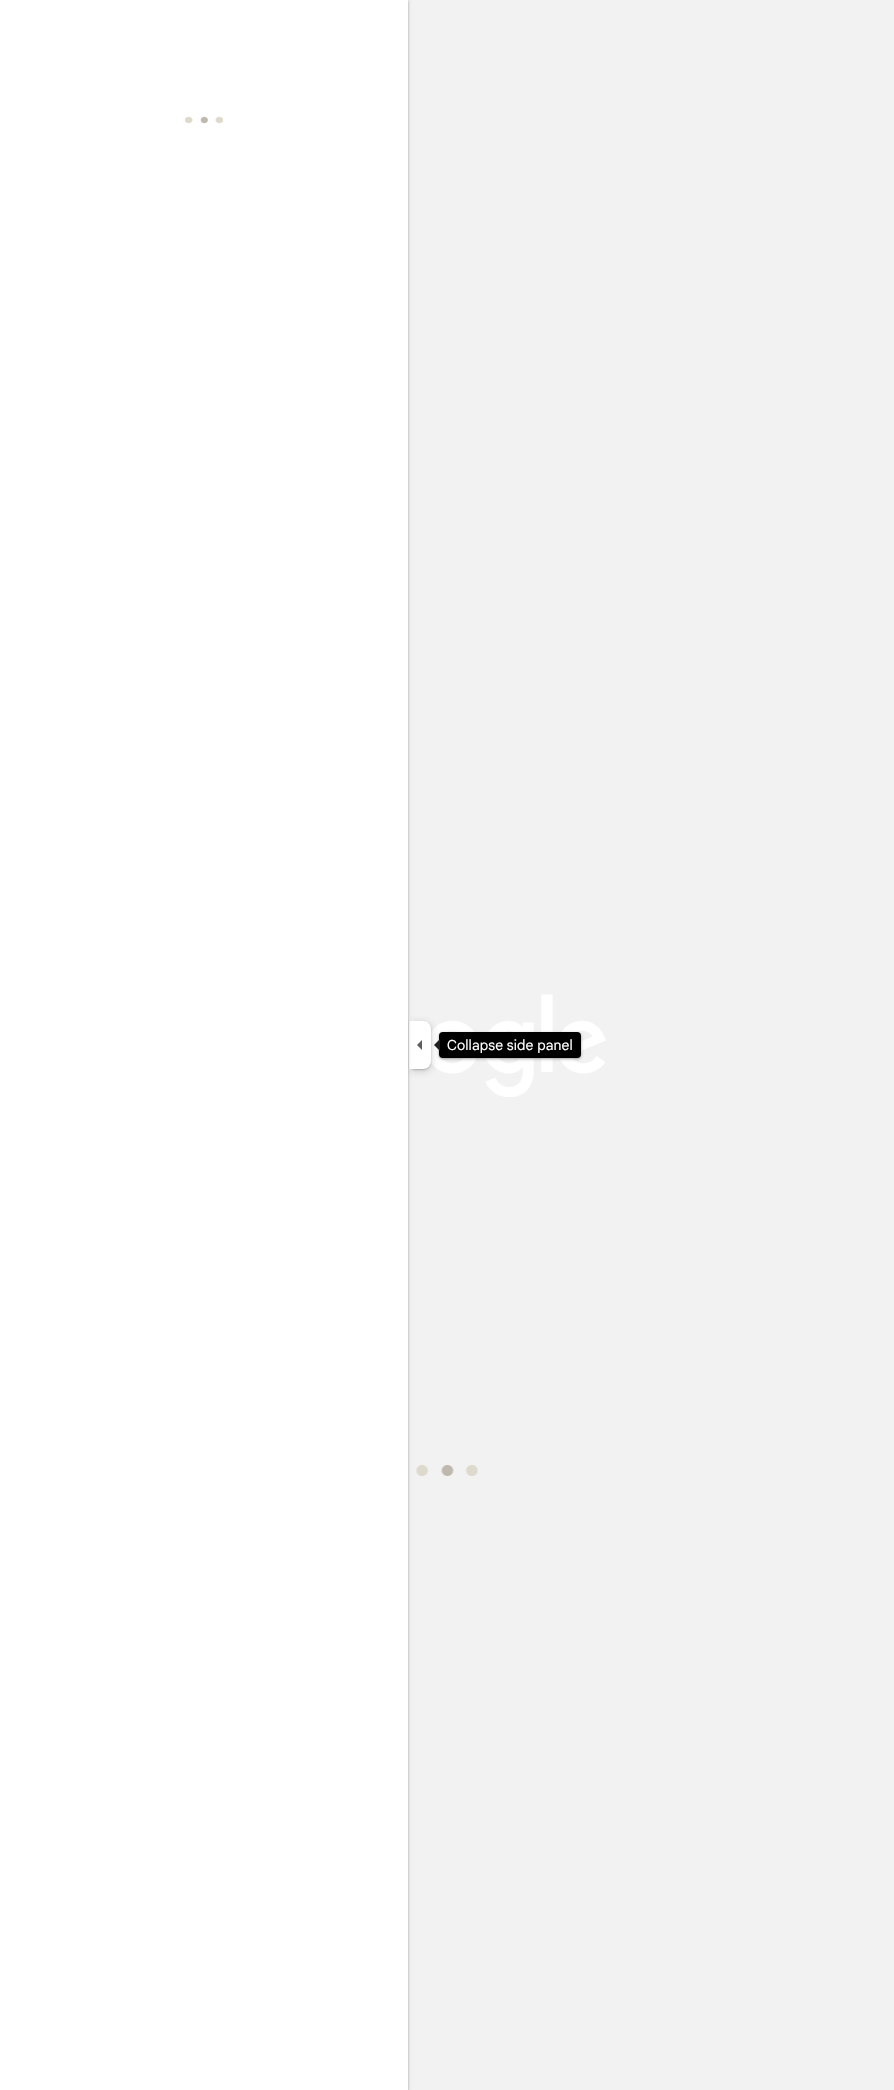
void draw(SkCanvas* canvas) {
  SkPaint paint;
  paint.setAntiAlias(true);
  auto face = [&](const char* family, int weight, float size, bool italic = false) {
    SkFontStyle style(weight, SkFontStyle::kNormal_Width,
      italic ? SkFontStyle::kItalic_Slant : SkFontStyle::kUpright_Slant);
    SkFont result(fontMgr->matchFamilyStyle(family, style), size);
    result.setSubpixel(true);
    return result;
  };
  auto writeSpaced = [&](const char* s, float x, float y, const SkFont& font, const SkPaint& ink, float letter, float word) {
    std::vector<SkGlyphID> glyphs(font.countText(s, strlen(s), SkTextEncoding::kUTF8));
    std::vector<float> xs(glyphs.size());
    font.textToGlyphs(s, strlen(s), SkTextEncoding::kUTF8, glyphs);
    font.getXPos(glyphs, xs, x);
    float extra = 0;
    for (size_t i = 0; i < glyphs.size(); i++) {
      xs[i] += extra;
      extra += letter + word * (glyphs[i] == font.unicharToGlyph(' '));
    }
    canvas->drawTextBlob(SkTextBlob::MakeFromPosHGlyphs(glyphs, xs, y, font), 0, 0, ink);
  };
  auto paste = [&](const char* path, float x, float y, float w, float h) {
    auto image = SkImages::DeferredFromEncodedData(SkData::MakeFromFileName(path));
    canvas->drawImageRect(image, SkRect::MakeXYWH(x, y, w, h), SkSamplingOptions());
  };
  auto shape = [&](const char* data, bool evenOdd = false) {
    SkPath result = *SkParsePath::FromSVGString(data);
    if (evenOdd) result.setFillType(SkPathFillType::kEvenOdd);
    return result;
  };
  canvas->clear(0xfff2f2f2);
  paste("img/1.png", 408, 994, 198, 103);
  paste("img/2.png", 416, 1465, 62, 11);
  paint.setColor(0x263c4043);
  paint.setMaskFilter(SkMaskFilter::MakeBlur(kNormal_SkBlurStyle, 3));
  canvas->drawRoundRect(SkRect::MakeXYWH(406, 1021, 27, 52), 10, 10, paint);
  paint.setMaskFilter(nullptr);
  paint.setColor(0x4d3c4043);
  paint.setMaskFilter(SkMaskFilter::MakeBlur(kNormal_SkBlurStyle, 1));
  canvas->drawRoundRect(SkRect::MakeXYWH(408, 1022, 23, 48), 8, 8, paint);
  paint.setMaskFilter(nullptr);
  paint.setColor(0xffffffff);
  canvas->drawPath(shape("M408 1021H423C427.5 1021 431 1024.5 431 1029V1061C431 1065.5 427.5 1069 423 1069H408Z"), paint);
  paint.setColor(0xffe3e3e3);
  canvas->drawRect(SkRect::MakeXYWH(408, 1021, 1, 48), paint);
  paint.setColor(0x263c4043);
  paint.setMaskFilter(SkMaskFilter::MakeBlur(kNormal_SkBlurStyle, 1.5f));
  canvas->drawRect(SkRect::MakeXYWH(-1, 0, 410, 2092), paint);
  paint.setMaskFilter(nullptr);
  paint.setColor(0x4d3c4043);
  paint.setMaskFilter(SkMaskFilter::MakeBlur(kNormal_SkBlurStyle, 1));
  canvas->drawRect(SkRect::MakeXYWH(0, 1, 408, 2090), paint);
  paint.setMaskFilter(nullptr);
  paint.setColor(0xffffffff);
  canvas->drawRect(SkRect::MakeXYWH(0, 0, 408, 2090), paint);
  paste("img/3.png", 185, 116, 38, 8);
  paint.setColor(0xff5e5e5e);
  canvas->drawPath(shape("M422 1050L417 1045L422 1040Z"), paint);
  paint.setColor(0x263c4043);
  paint.setMaskFilter(SkMaskFilter::MakeBlur(kNormal_SkBlurStyle, 1.5f));
  canvas->drawRoundRect(SkRect::MakeXYWH(438, 1032, 144, 28), 5, 5, paint);
  paint.setMaskFilter(nullptr);
  paint.setColor(0x4d3c4043);
  paint.setMaskFilter(SkMaskFilter::MakeBlur(kNormal_SkBlurStyle, 1));
  canvas->drawRoundRect(SkRect::MakeXYWH(439, 1033, 142, 26), 4, 4, paint);
  paint.setMaskFilter(nullptr);
  paint.setColor(0xff000000);
  canvas->drawRoundRect(SkRect::MakeXYWH(439, 1032, 142, 26), 4, 4, paint);
  paint.setColor(0xff1f1f1f);
  canvas->drawPath(shape("M440 1039V1051L434 1045Z"), paint);
  auto f0 = face("Google Sans", 400, 14);
  paint.setColor(0xffffffff);
  writeSpaced("Collapse side panel", 447, 1050, f0, paint, 0.1f, 0);
}
